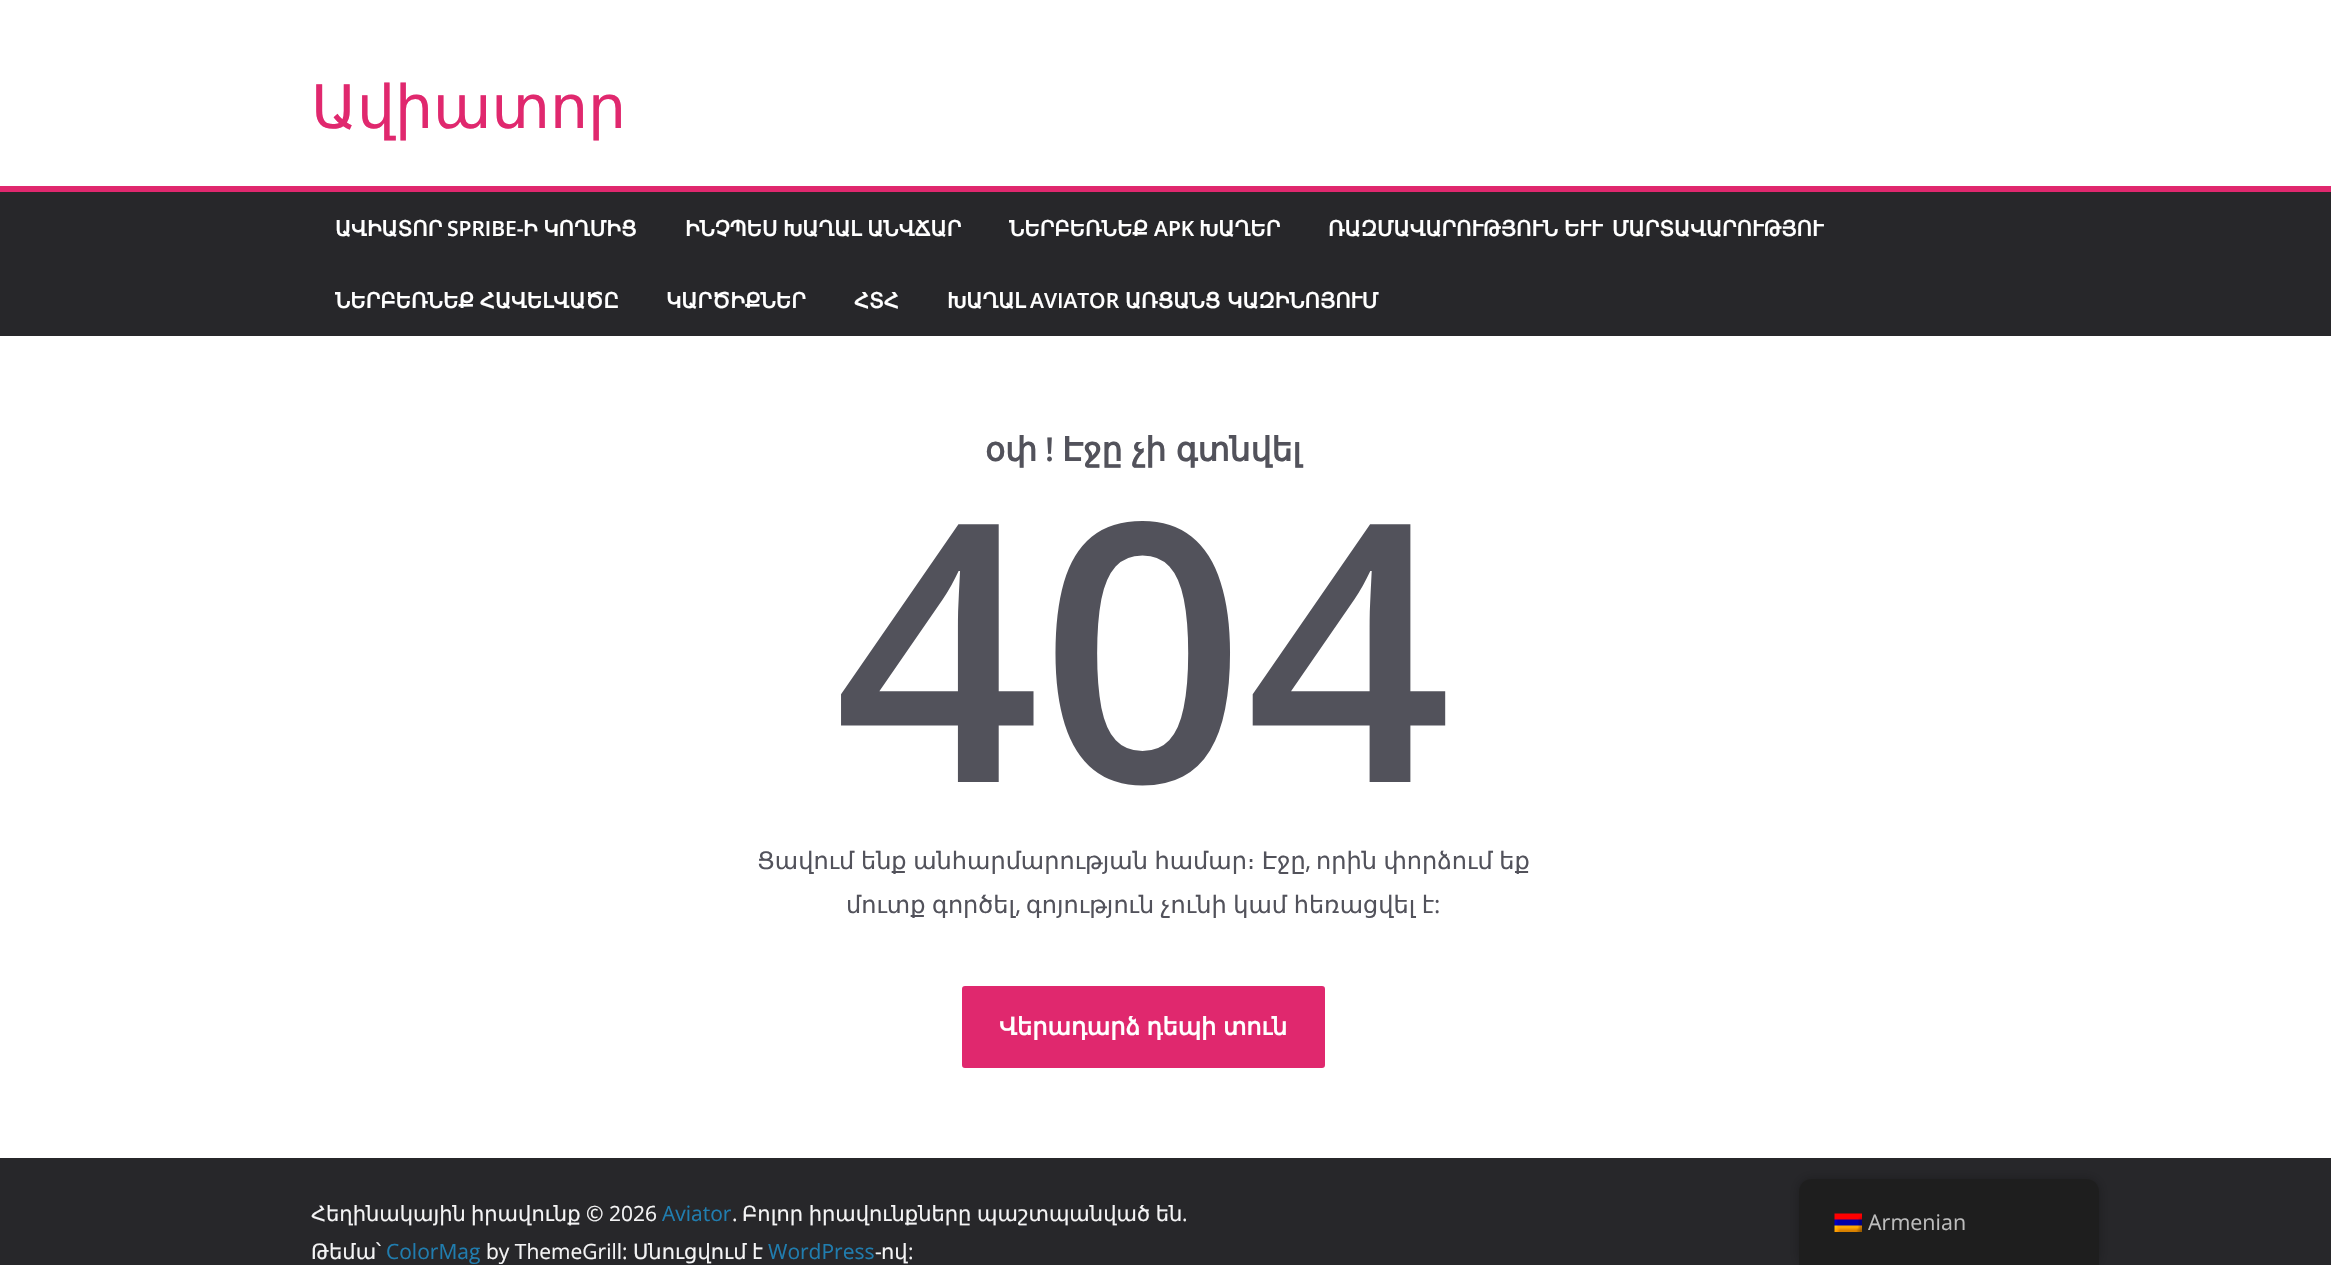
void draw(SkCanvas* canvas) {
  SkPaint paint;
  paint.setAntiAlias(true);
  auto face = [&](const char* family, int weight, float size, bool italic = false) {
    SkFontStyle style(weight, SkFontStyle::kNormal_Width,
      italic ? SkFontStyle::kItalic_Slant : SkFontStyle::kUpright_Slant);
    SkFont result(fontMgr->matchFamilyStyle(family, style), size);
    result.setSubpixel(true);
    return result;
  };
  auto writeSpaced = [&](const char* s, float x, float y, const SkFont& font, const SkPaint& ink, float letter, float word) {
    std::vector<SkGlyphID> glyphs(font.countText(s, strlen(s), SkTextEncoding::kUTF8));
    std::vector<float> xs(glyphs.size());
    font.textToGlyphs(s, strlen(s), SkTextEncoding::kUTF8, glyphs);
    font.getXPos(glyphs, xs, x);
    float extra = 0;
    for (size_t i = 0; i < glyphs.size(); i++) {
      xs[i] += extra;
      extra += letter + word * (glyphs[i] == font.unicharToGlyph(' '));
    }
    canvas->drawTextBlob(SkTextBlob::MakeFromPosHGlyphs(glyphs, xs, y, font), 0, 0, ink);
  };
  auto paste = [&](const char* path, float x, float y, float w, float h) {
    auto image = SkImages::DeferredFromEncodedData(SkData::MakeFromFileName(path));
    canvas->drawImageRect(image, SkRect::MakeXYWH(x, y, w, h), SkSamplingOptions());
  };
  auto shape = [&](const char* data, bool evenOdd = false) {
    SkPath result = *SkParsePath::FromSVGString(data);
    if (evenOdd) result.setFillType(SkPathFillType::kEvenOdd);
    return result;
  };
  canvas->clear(0xffffffff);
  paint.setColor(0xff27272a);
  canvas->drawRect(SkRect::MakeXYWH(0, 192, 2331, 144), paint);
  paint.setColor(0xffe0286e);
  canvas->drawRect(SkRect::MakeXYWH(0, 186, 2331, 6), paint);
  canvas->drawRoundRect(SkRect::MakeXYWH(963, 987, 361, 80), 2, 2, paint);
  paint.setStroke(true);
  paint.setStrokeWidth(2);
  canvas->drawRoundRect(SkRect::MakeXYWH(963, 987, 361, 80), 2, 2, paint);
  paint.setStroke(false);
  paint.setColor(0xff27272a);
  canvas->drawRect(SkRect::MakeXYWH(0, 1158, 2331, 107), paint);
  paint.setColor(0x40000000);
  paint.setMaskFilter(SkMaskFilter::MakeBlur(kNormal_SkBlurStyle, 6));
  canvas->drawRoundRect(SkRect::MakeXYWH(1799, 1179, 300, 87), 12, 12, paint);
  paint.setMaskFilter(nullptr);
  paint.setColor(0xff1e1e1e);
  canvas->drawPath(shape("M1811 1179H2087C2093.5 1179 2099 1184.5 2099 1191V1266H1799V1191C1799 1184.5 1804.5 1179 1811 1179Z"), paint);
  paste("img/1.png", 1834, 1213, 28, 19);
  auto f0 = face("DejaVu Sans", 400, 60);
  paint.setColor(0xffe0286e);
  canvas->drawString("Ավիատոր", 311, 128, f0, paint);
  auto f1 = face("DejaVu Sans", 700, 21);
  paint.setColor(0xffffffff);
  canvas->drawString("ԱՎԻԱՏՈՐ", 335, 236, f1, paint);
  auto f2 = face("Open Sans", 600, 21);
  canvas->drawString("SPRIBE-", 447, 236, f2, paint);
  writeSpaced("Ի ԿՈՂՄԻՑ", 523, 236, f1, paint, 0, -1);
  writeSpaced("ԻՆՉՊԵՍ ԽԱՂԱԼ ԱՆՎՃԱՐ", 685, 236, f1, paint, 0, -1);
  canvas->drawString("ՆԵՐԲԵՌՆԵՔ", 1009, 236, f1, paint);
  canvas->drawString("APK", 1154, 236, f2, paint);
  {
    const struct { const char* s; float x, y; } items[] = {
      {"ԽԱՂԵՐ", 1199, 236},
      {"ՌԱԶՄԱՎԱՐՈՒԹՅՈՒՆ", 1328, 236},
      {"ԵՒ", 1564, 236},
    };
    for (auto [s, x, y] : items) {
      canvas->drawString(s, x, y, f1, paint);
    }
  }
  writeSpaced("Ւ ՄԱՐՏԱՎԱՐՈՒԹՅՈՒ", 1591, 236, f1, paint, 0, 3);
  writeSpaced("ՆԵՐԲԵՌՆԵՔ ՀԱՎԵԼՎԱԾԸ", 335, 308, f1, paint, 0, -1);
  {
    const struct { const char* s; float x, y; } items[] = {
      {"ԿԱՐԾԻՔՆԵՐ", 666, 308},
      {"ՀՏՀ", 854, 308},
      {"ԽԱՂԱԼ", 947, 308},
    };
    for (auto [s, x, y] : items) {
      canvas->drawString(s, x, y, f1, paint);
    }
  }
  canvas->drawString("AVIATOR", 1030, 308, f2, paint);
  canvas->drawString("ԱՌՑԱՆՑ ԿԱԶԻՆՈՅՈՒՄ", 1125, 308, f1, paint);
  auto f3 = face("DejaVu Sans", 700, 33);
  paint.setColor(0xff52525b);
  canvas->drawString("օփ", 985, 461, f3, paint);
  auto f4 = face("Open Sans", 600, 33);
  canvas->drawString("!", 1045, 461, f4, paint);
  writeSpaced("Էջը չի գտնվել", 1062, 461, f3, paint, 0, -1);
  auto f5 = face("Open Sans", 600, 360);
  canvas->drawString("404", 834, 782, f5, paint);
  auto f6 = face("DejaVu Sans", 400, 24);
  writeSpaced("Ցավում ենք անհարմարության համար։ Էջը", 757, 869, f6, paint, 0, -1);
  auto f7 = face("Open Sans", 400, 24);
  canvas->drawString(",", 1305, 869, f7, paint);
  writeSpaced("որին փորձում եք", 1316, 869, f6, paint, 0, -1);
  writeSpaced("մուտք գործել", 846, 913, f6, paint, 0, -1);
  canvas->drawString(",", 1015, 913, f7, paint);
  writeSpaced("գոյություն չունի կամ հեռացվել է", 1026, 913, f6, paint, 0, -1);
  canvas->drawString(":", 1434, 913, f7, paint);
  auto f8 = face("DejaVu Sans", 700, 24);
  paint.setColor(0xffffffff);
  writeSpaced("Վերադարձ դեպի տուն", 999, 1035, f8, paint, 0, -1);
  auto f9 = face("DejaVu Sans", 400, 21);
  paint.setColor(0xfff4f4f5);
  canvas->drawString("Հեղինակային", 311, 1221, f9, paint);
  canvas->drawString("իրավունք", 471, 1221, f9, paint);
  auto f10 = face("Open Sans", 400, 21);
  canvas->drawString("© 2026", 586, 1221, f10, paint);
  paint.setColor(0xff207daf);
  canvas->drawString("Aviator", 662, 1221, f10, paint);
  paint.setColor(0xfff4f4f5);
  canvas->drawString(".", 732, 1221, f10, paint);
  writeSpaced("Բոլոր իրավունքները պաշտպանված են", 742, 1221, f9, paint, 0, -1);
  canvas->drawString(".", 1182, 1221, f10, paint);
  canvas->drawString("Թեմա՝", 311, 1259, f9, paint);
  paint.setColor(0xff207daf);
  canvas->drawString("ColorMag", 386, 1259, f10, paint);
  paint.setColor(0xfff4f4f5);
  canvas->drawString("by ThemeGrill:", 486, 1259, f10, paint);
  canvas->drawString("Սնուցվում", 633, 1259, f9, paint);
  canvas->drawString("է", 752, 1259, f9, paint);
  paint.setColor(0xff207daf);
  canvas->drawString("WordPress", 768, 1259, f10, paint);
  paint.setColor(0xfff4f4f5);
  canvas->drawString("-", 875, 1259, f10, paint);
  canvas->drawString("ով", 881, 1259, f9, paint);
  canvas->drawString(":", 908, 1259, f10, paint);
  auto f11 = face("Open Sans", 400, 21.5f);
  paint.setColor(0xffbdbdbd);
  canvas->drawString("Armenian", 1868, 1230, f11, paint);
}
